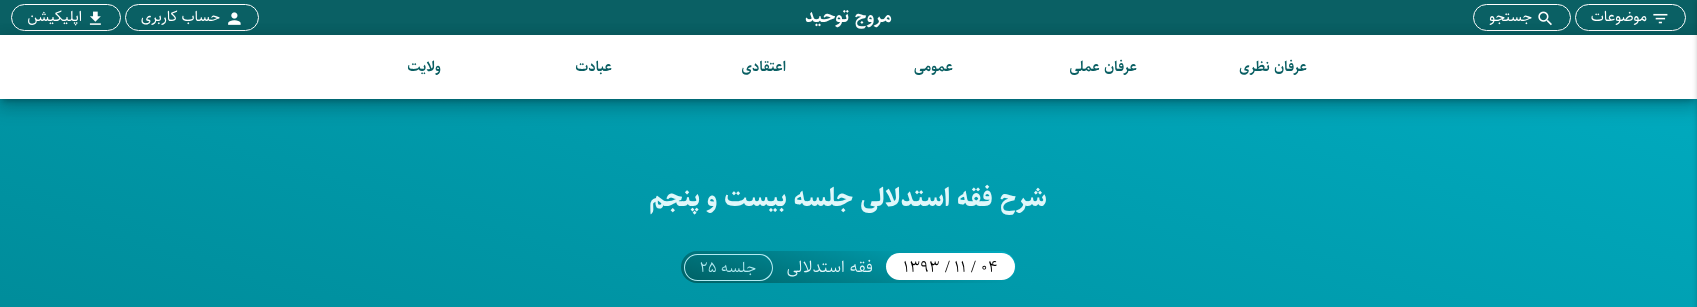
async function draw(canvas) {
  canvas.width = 1697;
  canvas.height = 307;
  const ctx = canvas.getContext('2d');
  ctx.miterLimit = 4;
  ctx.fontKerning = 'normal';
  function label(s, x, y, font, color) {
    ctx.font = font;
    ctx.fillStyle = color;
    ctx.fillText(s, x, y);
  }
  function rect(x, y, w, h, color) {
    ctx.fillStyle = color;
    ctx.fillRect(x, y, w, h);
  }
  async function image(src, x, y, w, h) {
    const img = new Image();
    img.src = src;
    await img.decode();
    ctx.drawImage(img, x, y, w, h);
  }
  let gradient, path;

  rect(0, 0, 1697, 307, '#fff');
  rect(0, 0, 1697, 35, '#0a6064');
  ctx.beginPath();
  ctx.roundRect(1575.5, 4.5, 110, 26, 13);
  ctx.strokeStyle = '#fff';
  ctx.stroke();
  await image('assets/img1.png', 1653, 13, 15, 11);
  ctx.direction = 'rtl';
  label('موضوعات', 1647, 21, '15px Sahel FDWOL', '#fff');
  ctx.beginPath();
  ctx.roundRect(1473.5, 4.5, 97, 26, 13);
  ctx.stroke();
  await image('assets/img2.png', 1538, 11, 14, 15);
  label('جستجو', 1532, 21, '15px Sahel FDWOL', '#fff');
  label('مروج توحید', 892, 22, '600 19.5px Sahel FDWOL', '#fff');
  ctx.beginPath();
  ctx.roundRect(125.5, 4.5, 133, 26, 13);
  ctx.stroke();
  await image('assets/img3.png', 228, 12, 13, 13);
  label('حساب کاربری', 220, 21, '15px Sahel FDWOL', '#fff');
  ctx.beginPath();
  ctx.roundRect(11.5, 4.5, 109, 26, 13);
  ctx.stroke();
  await image('assets/img4.png', 89, 11, 12, 14);
  label('اپلیکیشن', 82, 21, '15px Sahel FDWOL', '#fff');
  gradient = ctx.createLinearGradient(1117, -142, 580, 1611);
  gradient.addColorStop(0, '#00acc1');
  gradient.addColorStop(1, '#006064');
  ctx.fillStyle = gradient;
  ctx.fillRect(0, 99, 1697, 208);
  ctx.fillStyle = '#00000033';
  ctx.filter = 'blur(2.5px)';
  ctx.beginPath();
  ctx.rect(3, 43, 1691, 58);
  ctx.fill();
  ctx.filter = 'none';
  ctx.fillStyle = '#0000001f';
  ctx.filter = 'blur(7px)';
  ctx.beginPath();
  ctx.rect(-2, 36, 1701, 68);
  ctx.fill();
  ctx.filter = 'none';
  ctx.fillStyle = '#00000024';
  ctx.filter = 'blur(8.5px)';
  ctx.beginPath();
  ctx.rect(-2, 41, 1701, 68);
  ctx.fill();
  ctx.filter = 'none';
  rect(0, 35, 1697, 64, '#fff');
  ctx.fillStyle = '#00000033';
  ctx.filter = 'blur(2.5px)';
  ctx.beginPath();
  ctx.rect(1697, 1, 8, 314);
  ctx.fill();
  ctx.filter = 'none';
  label('عرفان نظری', 1307, 71, '600 15px Sahel FDWOL', '#0a5f63');
  label('عرفان عملی', 1137, 71, '600 15px Sahel FDWOL', '#0a5f63');
  label('عمومی', 953, 71, '600 15px Sahel FDWOL', '#0a5f63');
  label('اعتقادی', 786, 71, '600 15px Sahel FDWOL', '#0a5f63');
  label('عبادت', 612, 71, '600 15px Sahel FDWOL', '#0a5f63');
  label('ولایت', 441, 71, '600 15px Sahel FDWOL', '#0a5f63');
  label('شرح فقه استدلالی جلسه بیست و پنجم', 1047, 206, 'bold 26.25px Sahel FDWOL', '#e0f7fa');
  gradient = ctx.createLinearGradient(867, 206, 830, 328);
  gradient.addColorStop(0, '#00acc1');
  gradient.addColorStop(1, '#006064');
  ctx.fillStyle = gradient;
  ctx.beginPath();
  ctx.roundRect(681, 251, 335, 32, 16);
  ctx.fill();
  ctx.fillStyle = '#fff';
  ctx.beginPath();
  ctx.roundRect(981, 253, 34, 27, [0, 13.5, 13.5, 0]);
  ctx.fill();
  ctx.direction = 'ltr';
  label('۰۴', 981, 272, '300 17.25px Sahel FDWOL', '#000');
  rect(940, 253, 41, 27, '#fff');
  label('/', 971, 272, '17.25px Liberation Serif', '#000');
  label('۱۱', 954, 272, '300 17.25px Sahel FDWOL', '#000');
  label('/', 945, 272, '17.25px Liberation Serif', '#000');
  ctx.fillStyle = '#fff';
  ctx.beginPath();
  ctx.roundRect(886, 253, 54, 27, [13.5, 0, 0, 13.5]);
  ctx.fill();
  label('۱۳۹۳', 903, 272, '300 17.25px Sahel FDWOL', '#000');
  ctx.direction = 'rtl';
  label('فقه استدلالی', 873, 272, '300 17.25px Sahel FDWOL', '#e0f7fa');
  ctx.fillStyle = '#b2ebf2';
  path = new Path2D('M717 254H760C767 254 773 260 773 268C773 275 767 281 760 281H717ZM717 255H760C766 255 772 261 772 268C772 274 766 280 760 280H717Z');
  ctx.fill(path, 'evenodd');
  label('جلسه', 756, 272, '300 15.5px Sahel FDWOL', '#b2ebf2');
  path = new Path2D('M697.5 254H717V281H697.5C690 281 684 275 684 267.5C684 260 690 254 697.5 254ZM697.5 255H717V280H697.5C690.5 280 685 274.5 685 267.5C685 260.5 690.5 255 697.5 255Z');
  ctx.fill(path, 'evenodd');
  ctx.direction = 'ltr';
  label('۲۵', 700, 272, '300 15.5px Sahel FDWOL', '#b2ebf2');
}

draw(document.querySelector('canvas'));
